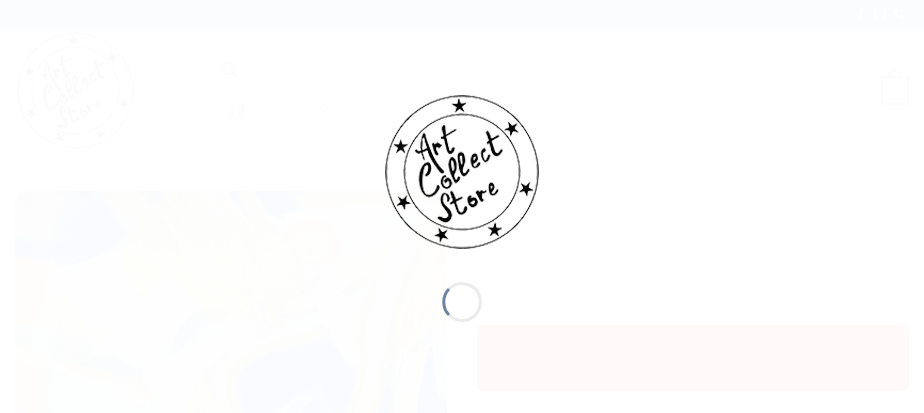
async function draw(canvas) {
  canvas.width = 924;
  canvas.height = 413;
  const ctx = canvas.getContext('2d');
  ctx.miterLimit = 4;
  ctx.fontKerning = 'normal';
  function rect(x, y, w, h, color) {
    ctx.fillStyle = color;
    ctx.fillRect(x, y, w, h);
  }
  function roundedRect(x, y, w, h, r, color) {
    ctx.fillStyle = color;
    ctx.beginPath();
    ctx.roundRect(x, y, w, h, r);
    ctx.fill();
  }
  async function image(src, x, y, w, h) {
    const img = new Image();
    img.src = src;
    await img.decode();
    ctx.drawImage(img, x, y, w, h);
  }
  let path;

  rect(0, 0, 924, 413, '#fff');
  rect(0, 0, 924, 30, '#fbfcfd');
  await image('assets/img1.png', 858, 7, 6, 13);
  await image('assets/img2.png', 874, 9, 12, 10);
  await image('assets/img3.png', 893, 8, 12, 12);
  await image('assets/img4.png', 17, 32, 117, 117);
  await image('assets/img5.png', 221, 61, 16, 16);
  await image('assets/img6.png', 228, 105, 16, 11);
  await image('assets/img7.png', 319, 107, 10, 6);
  ctx.strokeStyle = '#fbfcfd';
  ctx.lineWidth = 2;
  ctx.strokeRect(882, 77, 26, 27);
  path = new Path2D('M895 70C899.5 70 902 74 902 78H888C888 74 890.5 70 895 70ZM895 72C898.5 72 900 75 900 78H890C890 75 891.5 72 895 72Z');
  ctx.fill(path, 'evenodd');
  await image('assets/img9.png', 15, 191, 432, 222);
  await image('assets/img10.png', 411, 207, 19, 16);
  await image('assets/img8.png', 385, 95, 154, 154);
  path = new Path2D('M449 289C453.5 284.5 459.5 282.5 465.5 284C487.5 288 484 320.5 462 320.5C457 320.5 452.5 318.5 449 315');
  ctx.strokeStyle = '#ebebeb';
  ctx.lineWidth = 3;
  ctx.stroke(path);
  path = new Path2D('M449 315C442 308 442 296 449 289');
  ctx.strokeStyle = '#446084c7';
  ctx.stroke(path);
  roundedRect(477, 325, 432, 66, 5, '#fffafa');
}

draw(document.querySelector('canvas'));
